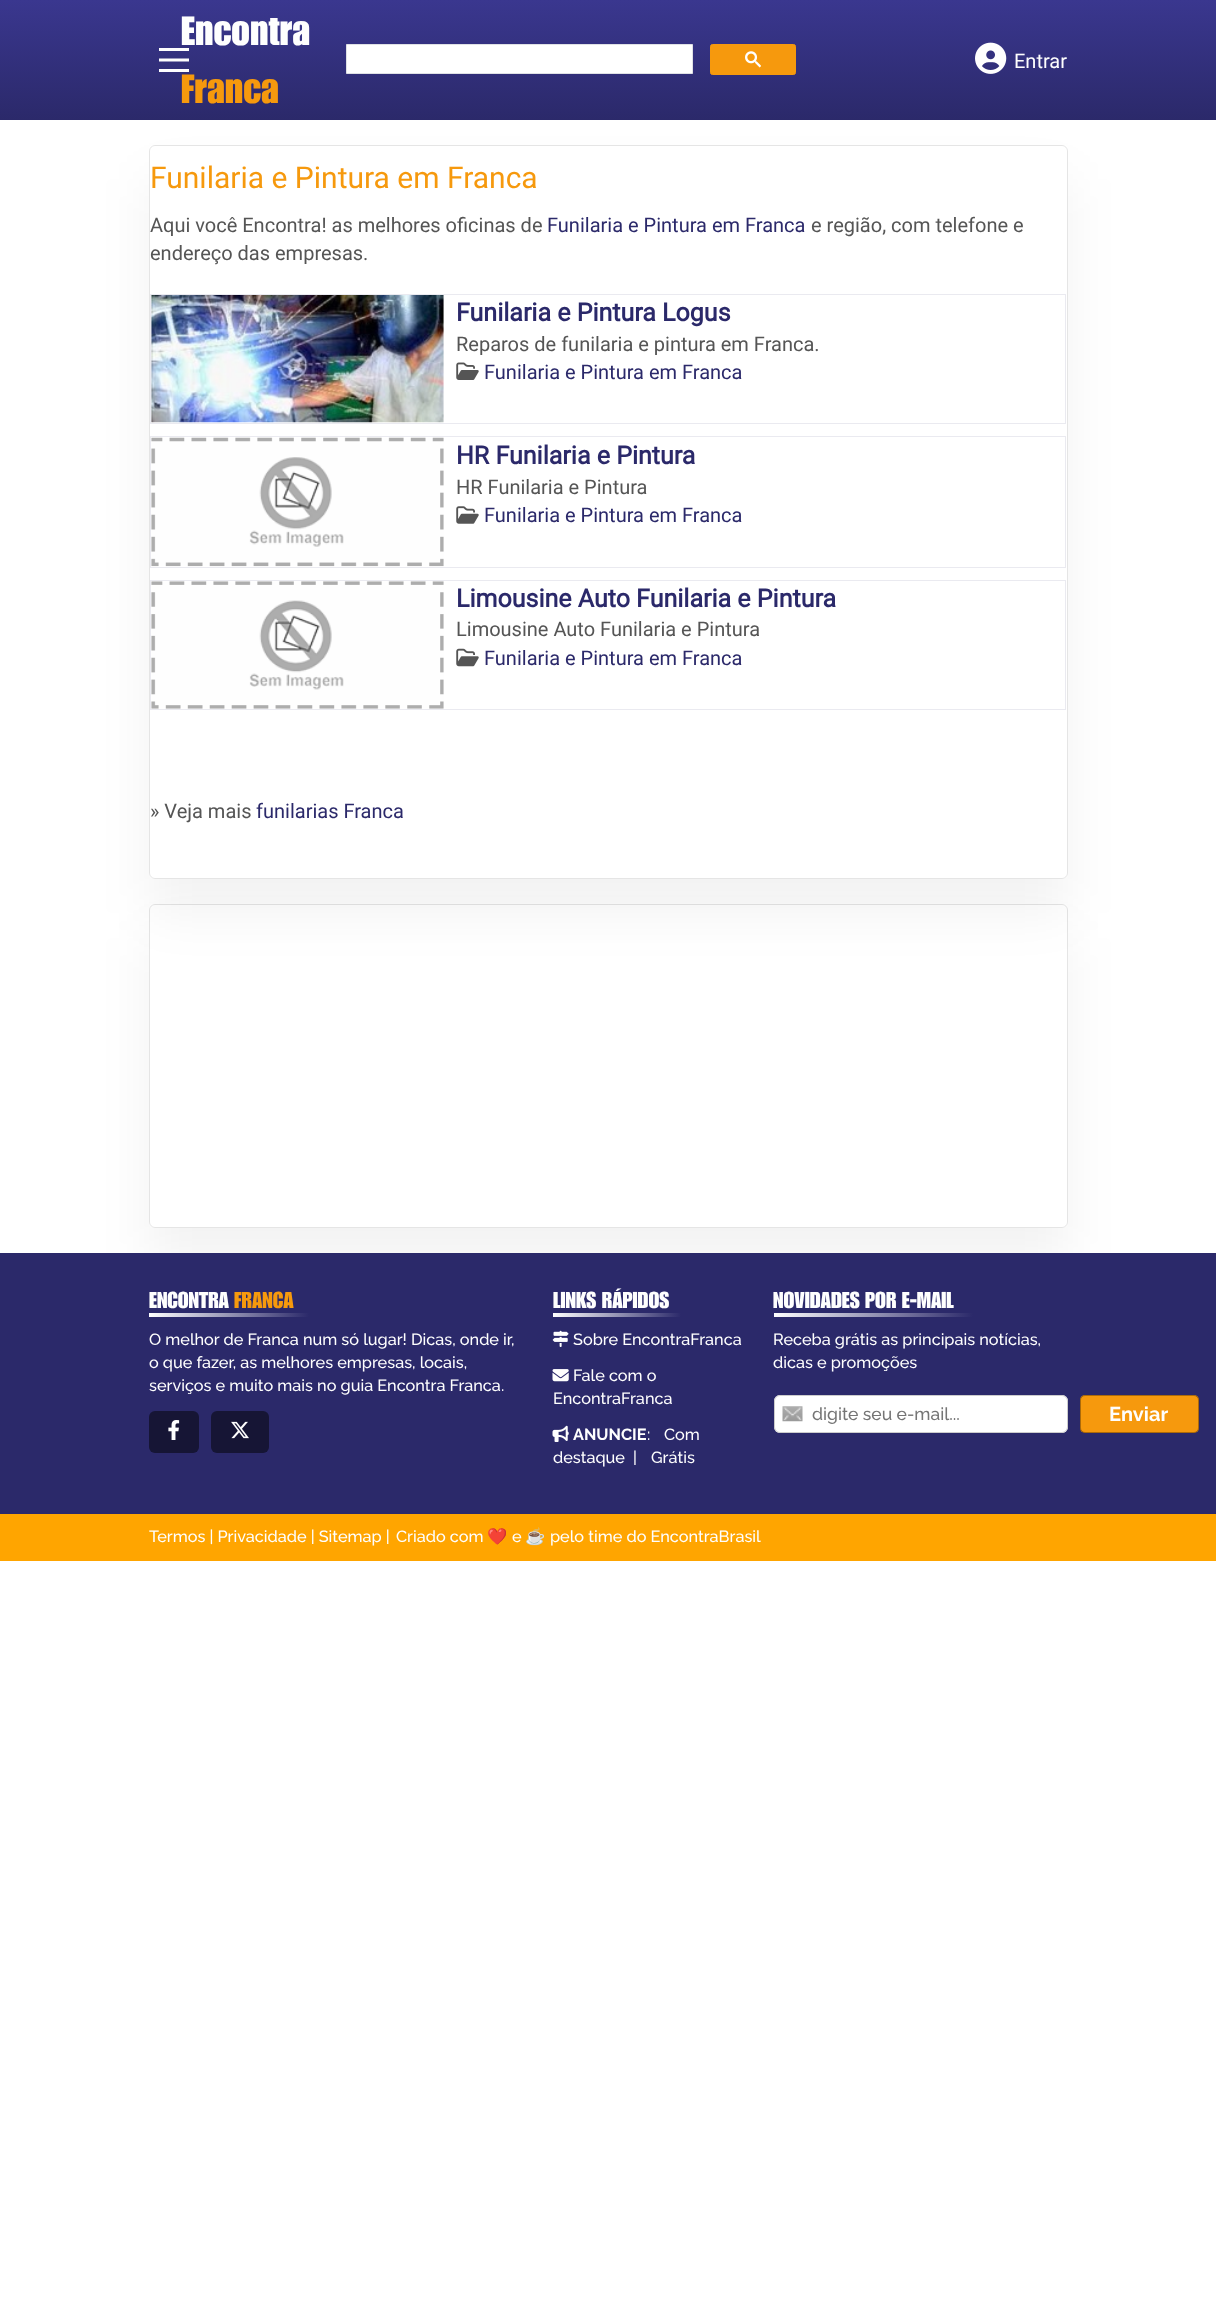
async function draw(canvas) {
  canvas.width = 1216;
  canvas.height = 2299;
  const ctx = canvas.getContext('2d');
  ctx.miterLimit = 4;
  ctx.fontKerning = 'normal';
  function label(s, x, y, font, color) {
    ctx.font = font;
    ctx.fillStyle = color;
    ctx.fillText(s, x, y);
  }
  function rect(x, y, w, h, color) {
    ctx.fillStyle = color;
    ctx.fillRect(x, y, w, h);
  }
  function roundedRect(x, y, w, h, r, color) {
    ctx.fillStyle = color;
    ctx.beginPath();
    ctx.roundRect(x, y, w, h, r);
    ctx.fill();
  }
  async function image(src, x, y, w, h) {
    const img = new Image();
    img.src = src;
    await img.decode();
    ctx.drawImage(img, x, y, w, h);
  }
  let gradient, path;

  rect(0, 0, 1216, 2299, '#fff');
  ctx.save();
  path = new Path2D('M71 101H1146V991H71ZM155 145H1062C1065.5 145 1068 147.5 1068 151V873C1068 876.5 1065.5 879 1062 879H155C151.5 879 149 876.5 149 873V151C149 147.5 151.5 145 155 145Z');
  ctx.clip(path, 'evenodd');
  ctx.fillStyle = '#0000000d';
  ctx.filter = 'blur(25.5px)';
  ctx.beginPath();
  ctx.roundRect(149, 179, 919, 734, 6);
  ctx.fill();
  ctx.filter = 'none';
  ctx.restore();
  gradient = ctx.createLinearGradient(608, 0, 608, 120);
  gradient.addColorStop(0, '#3a378f');
  gradient.addColorStop(1, '#2b296a');
  ctx.fillStyle = gradient;
  ctx.fillRect(0, 0, 1216, 120);
  rect(159, 48, 30, 3, '#fefefe');
  path = new Path2D('M159 60H189');
  ctx.strokeStyle = '#fefefe';
  ctx.lineWidth = 3;
  ctx.stroke(path);
  rect(159, 69, 30, 3, '#fefefe');
  label('Encontra', 181, 45, '500 40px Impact', '#fefefe');
  label('Franca', 181, 103, '500 40px Impact', '#f6990d');
  ctx.fillStyle = '#fff';
  ctx.beginPath();
  ctx.rect(346.5, 44.5, 346, 29);
  ctx.fill();
  ctx.strokeStyle = '#dfe1e5';
  ctx.lineWidth = 1;
  ctx.stroke();
  ctx.fillStyle = '#f6990d';
  ctx.beginPath();
  ctx.roundRect(710.5, 44.5, 85, 30, 2);
  ctx.fill();
  ctx.strokeStyle = '#f6990d';
  ctx.stroke();
  await image('assets/img1.png', 745, 51, 16, 17);
  await image('assets/img2.png', 975, 42, 32, 32);
  label('Entrar', 1014, 68, '20px Roboto', '#fefefe');
  ctx.beginPath();
  ctx.roundRect(149.5, 145.5, 918, 733, 5.5);
  ctx.strokeStyle = '#0000001a';
  ctx.stroke();
  label('Funilaria e Pintura em Franca', 150, 188, '30px Roboto', '#f6990d');
  label('Aqui você Encontra! as melhores oficinas de', 150, 232, '20px Roboto', '#555');
  label('Funilaria e Pintura em Franca', 547, 232, '20px Roboto', '#2b296a');
  label('e região, com telefone e', 811, 232, '20px Roboto', '#555');
  label('endereço das empresas.', 150, 260, '20px Roboto', '#555');
  ctx.strokeStyle = '#eaeaf0';
  ctx.strokeRect(150.5, 294.5, 915, 129);
  await image('assets/img3.png', 151, 295, 293, 128);
  label('Funilaria e Pintura Logus', 456, 321, 'bold 25px Roboto', '#2b296a');
  label('Reparos de funilaria e pintura em Franca.', 456, 351, '20px Roboto', '#555');
  await image('assets/img4.png', 456, 362, 23, 18);
  label('Funilaria e Pintura em Franca', 484, 379, '20px Roboto', '#2b296a');
  ctx.strokeRect(150.5, 436.5, 915, 131);
  await image('assets/img5.png', 151, 437, 293, 130);
  label('HR Funilaria e Pintura', 456, 464, 'bold 25px Roboto', '#2b296a');
  label('HR Funilaria e Pintura', 456, 494, '20px Roboto', '#555');
  await image('assets/img6.png', 456, 506, 23, 18);
  label('Funilaria e Pintura em Franca', 484, 522, '20px Roboto', '#2b296a');
  ctx.strokeRect(150.5, 580.5, 915, 129);
  await image('assets/img7.png', 151, 581, 293, 128);
  label('Limousine Auto Funilaria e Pintura', 456, 607, 'bold 25px Roboto', '#2b296a');
  label('Limousine Auto Funilaria e Pintura', 456, 636, '20px Roboto', '#555');
  await image('assets/img8.png', 456, 648, 23, 19);
  label('Funilaria e Pintura em Franca', 484, 665, '20px Roboto', '#2b296a');
  label('» Veja mais', 150, 818, '20px Roboto', '#555');
  label('funilarias Franca', 256, 818, '20px Roboto', '#2b296a');
  ctx.save();
  path = new Path2D('M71 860H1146V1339H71ZM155 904H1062C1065.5 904 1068 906.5 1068 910V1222C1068 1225.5 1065.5 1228 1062 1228H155C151.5 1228 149 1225.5 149 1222V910C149 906.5 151.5 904 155 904Z');
  ctx.clip(path, 'evenodd');
  ctx.fillStyle = '#0000000d';
  ctx.filter = 'blur(25.5px)';
  ctx.beginPath();
  ctx.roundRect(149, 938, 919, 323, 6);
  ctx.fill();
  ctx.filter = 'none';
  ctx.restore();
  ctx.beginPath();
  ctx.roundRect(149.5, 904.5, 918, 323, 5.5);
  ctx.strokeStyle = '#0000001a';
  ctx.stroke();
  rect(0, 1253, 1216, 261, '#2b296a');
  label('ENCONTRA', 149, 1308, '500 22.5px Impact', '#fefefe');
  label('FRANCA', 234, 1308, '500 22.5px Impact', '#f6990d');
  gradient = ctx.createLinearGradient(149, 1314, 309, 1314);
  gradient.addColorStop(0, '#fff');
  gradient.addColorStop(1, '#2b296a');
  ctx.fillStyle = gradient;
  ctx.fillRect(149, 1313, 160, 4);
  label('O melhor de Franca num só lugar! Dicas, onde ir,', 149, 1345, '500 16.25px Raleway', '#fefefe');
  label('o que fazer, as melhores empresas, locais,', 149, 1368, '500 16.25px Raleway', '#fefefe');
  label('serviços e muito mais no guia Encontra Franca.', 149, 1391, '500 16.25px Raleway', '#fefefe');
  roundedRect(149, 1411, 50, 42, 6, '#161535');
  await image('assets/img9.png', 168, 1420, 12, 20);
  roundedRect(211, 1411, 58, 42, 6, '#161535');
  await image('assets/img10.png', 231, 1421, 18, 18);
  label('LINKS RÁPIDOS', 553, 1308, '500 22.5px Impact', '#fefefe');
  gradient = ctx.createLinearGradient(553, 1314, 681, 1314);
  gradient.addColorStop(0, '#fff');
  gradient.addColorStop(1, '#2b296a');
  ctx.fillStyle = gradient;
  ctx.fillRect(553, 1313, 128, 4);
  await image('assets/img11.png', 552, 1330, 17, 17);
  label('Sobre EncontraFranca', 573, 1345, '500 16.25px Raleway', '#fefefe');
  await image('assets/img12.png', 552, 1369, 17, 13);
  label('Fale com o', 573, 1381, '500 16.25px Raleway', '#fefefe');
  label('EncontraFranca', 553, 1404, '500 16.25px Raleway', '#fefefe');
  await image('assets/img13.png', 552, 1425, 17, 17);
  label('ANUNCIE', 573, 1440, 'bold 16.25px Raleway', '#fefefe');
  label(':', 647, 1440, '500 16.25px Raleway', '#fefefe');
  label('Com', 664, 1440, '500 16.25px Raleway', '#fefefe');
  label('destaque', 553, 1463, '500 16.25px Raleway', '#fefefe');
  label('|', 633, 1463, '500 16.25px Raleway', '#fefefe');
  label('Grátis', 651, 1463, '500 16.25px Raleway', '#fefefe');
  label('NOVIDADES POR E-MAIL', 773, 1308, '500 22.5px Impact', '#fefefe');
  gradient = ctx.createLinearGradient(774, 1314, 973, 1314);
  gradient.addColorStop(0, '#fff');
  gradient.addColorStop(1, '#2b296a');
  ctx.fillStyle = gradient;
  ctx.fillRect(774, 1313, 199, 4);
  label('Receba grátis as principais notícias,', 773, 1345, '500 16.25px Raleway', '#fefefe');
  label('dicas e promoções', 773, 1368, '500 16.25px Raleway', '#fefefe');
  roundedRect(774, 1395, 294, 38, 6, '#fff');
  await image('assets/img14.png', 782, 1406, 21, 16);
  ctx.beginPath();
  ctx.roundRect(774.5, 1395.5, 293, 37, 5.5);
  ctx.strokeStyle = '#ccc';
  ctx.stroke();
  label('digite seu e-mail...', 812, 1420, '500 17.5px Raleway', '#757575');
  roundedRect(1080, 1395, 119, 38, 5, '#f6990d');
  ctx.beginPath();
  ctx.roundRect(1080.5, 1395.5, 118, 37, 4.5);
  ctx.strokeStyle = '#0000004d';
  ctx.stroke();
  label('Enviar', 1109, 1421, 'bold 20px Raleway', '#fefefe');
  rect(0, 1514, 1216, 47, '#ffa500');
  label('Termos | Privacidade | Sitemap |', 149, 1542, '500 16.25px Raleway', '#fefefe');
  label('Criado com', 396, 1542, '500 16.25px Raleway', '#fefefe');
  label('❤️', 487, 1542, '16.25px Noto Color Emoji', '#fefefe');
  label('e', 512, 1542, '500 16.25px Raleway', '#fefefe');
  label('☕', 525, 1542, '16.25px Noto Color Emoji', '#fefefe');
  label('pelo time do EncontraBrasil', 550, 1542, '500 16.25px Raleway', '#fefefe');
}

draw(document.querySelector('canvas'));
